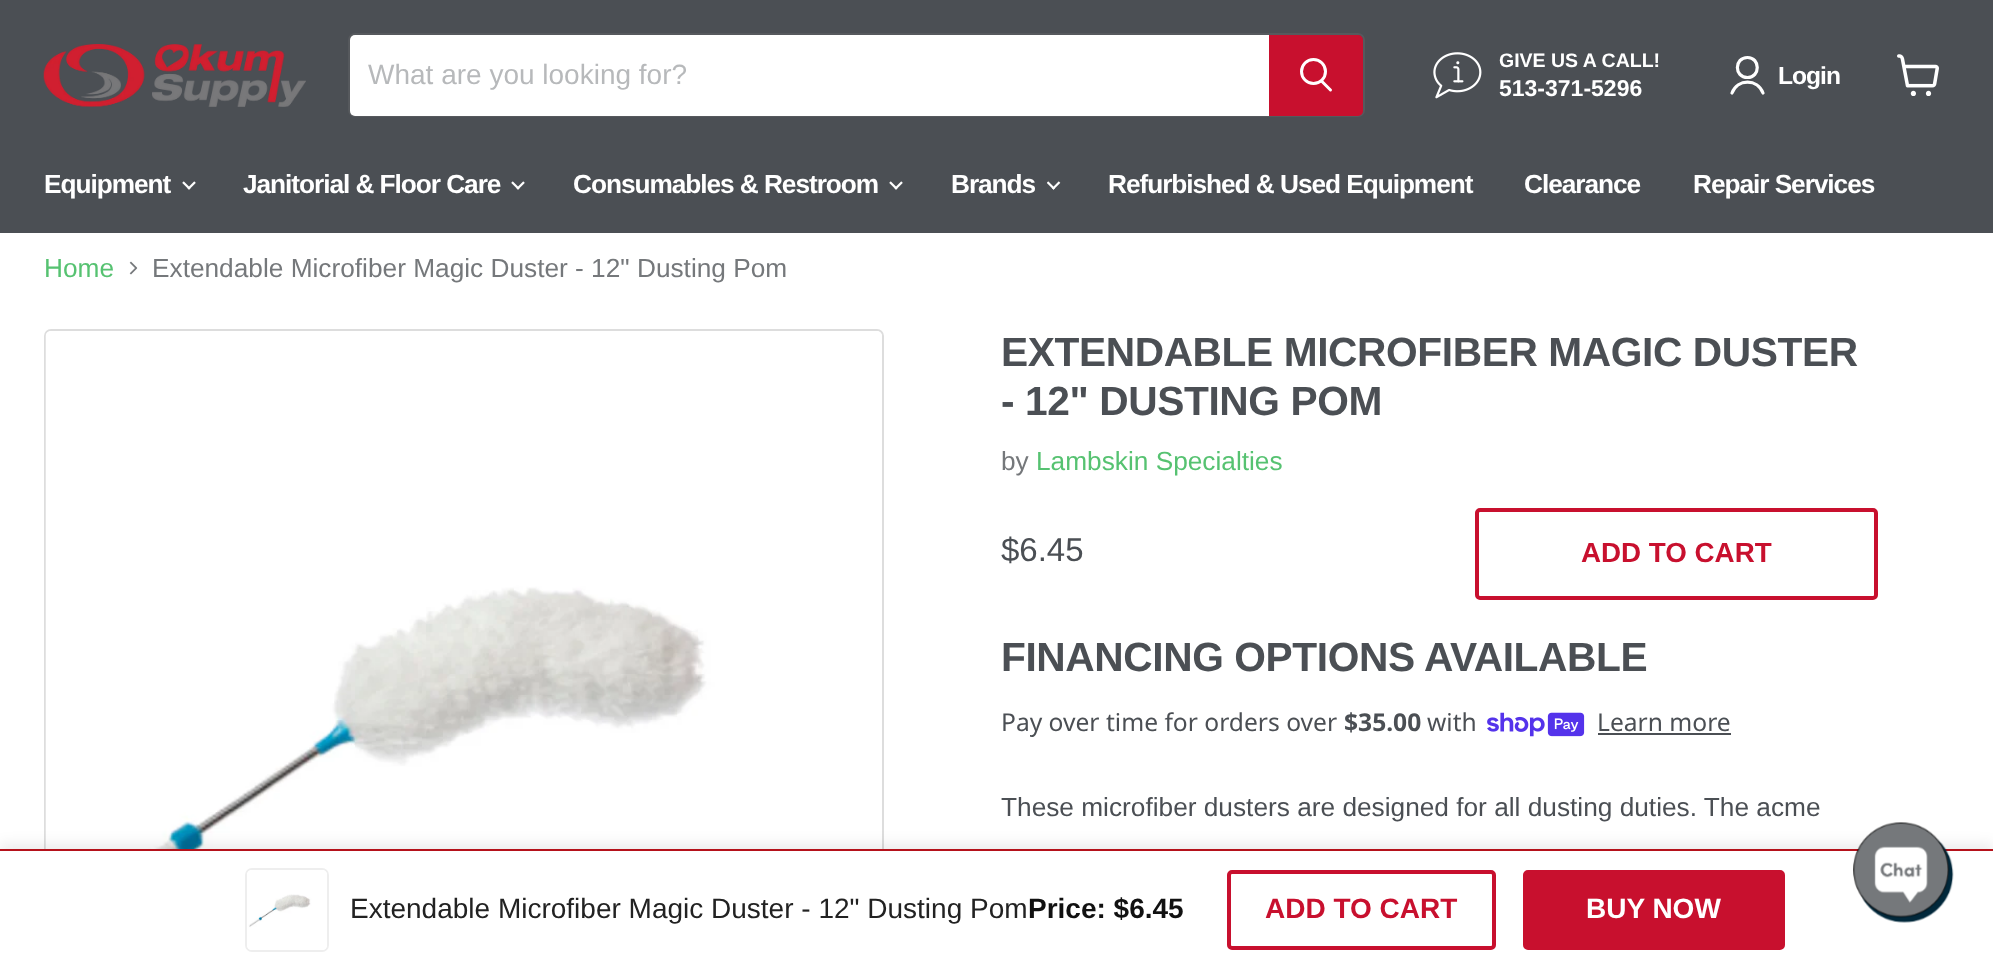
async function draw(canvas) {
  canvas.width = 1993;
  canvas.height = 968;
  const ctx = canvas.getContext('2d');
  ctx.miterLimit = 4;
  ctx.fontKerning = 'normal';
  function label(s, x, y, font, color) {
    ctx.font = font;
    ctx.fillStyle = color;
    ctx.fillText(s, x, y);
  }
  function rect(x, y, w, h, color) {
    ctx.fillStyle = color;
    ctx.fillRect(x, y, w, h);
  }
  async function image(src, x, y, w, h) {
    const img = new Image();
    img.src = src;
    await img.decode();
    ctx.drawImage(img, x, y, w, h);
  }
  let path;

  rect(0, 0, 1993, 968, '#fff');
  rect(0, 0, 1993, 233, '#4b4f54');
  await image('assets/img1.png', 43, 44, 263, 63);
  ctx.beginPath();
  ctx.roundRect(349, 34, 1015, 82, 6);
  ctx.strokeStyle = '#56595d';
  ctx.lineWidth = 2;
  ctx.stroke();
  ctx.fillStyle = '#fff';
  ctx.beginPath();
  ctx.roundRect(350, 35, 919, 81, [5, 0, 0, 5]);
  ctx.fill();
  label('What are you looking for?', 368, 84, '28px Liberation Sans', '#b7b9bb');
  ctx.fillStyle = '#c8102e';
  ctx.beginPath();
  ctx.roundRect(1270, 36, 92, 79, [0, 4, 4, 0]);
  ctx.fill();
  ctx.strokeStyle = '#c8102e';
  ctx.stroke();
  path = new Path2D('M1330.5 90L1322 81.5');
  ctx.strokeStyle = '#fff';
  ctx.lineWidth = 3;
  ctx.lineCap = 'round';
  ctx.stroke(path);
  ctx.beginPath();
  ctx.arc(1313.5, 71.5, 12, 0, 2 * Math.PI);
  ctx.stroke();
  await image('assets/img2.png', 1433, 52, 49, 47);
  label('GIVE US A CALL!', 1499, 67, 'bold 19.5px Liberation Sans', '#fff');
  label('513-371-5296', 1499, 96, 'bold 23px Liberation Sans', '#fff');
  path = new Path2D('M1747.5 77.5C1760.5 77.5 1760.5 57.5 1747.5 57.5C1734 57.5 1734 77.5 1747.5 77.5ZM1763 93C1757.5 78.5 1737.5 78.5 1732 93');
  ctx.lineWidth = 3.2;
  ctx.lineJoin = 'round';
  ctx.stroke(path);
  ctx.letterSpacing = '-1px';
  label('Login', 1778, 84, 'bold 24.6px Liberation Sans', '#fff');
  await image('assets/img3.png', 1897, 54, 42, 42);
  ctx.letterSpacing = '-1.05px';
  label('Equipment', 44, 193, 'bold 26.25px Liberation Sans', '#fff');
  await image('assets/img4.png', 182, 181, 14, 9);
  label('Janitorial & Floor Care', 243, 193, 'bold 26.25px Liberation Sans', '#fff');
  await image('assets/img4.png', 511, 181, 14, 9);
  label('Consumables & Restroom', 573, 193, 'bold 26.25px Liberation Sans', '#fff');
  await image('assets/img4.png', 889, 181, 14, 9);
  label('Brands', 951, 193, 'bold 26.25px Liberation Sans', '#fff');
  await image('assets/img5.png', 1047, 181, 14, 9);
  label('Refurbished & Used Equipment', 1108, 193, 'bold 26.25px Liberation Sans', '#fff');
  label('Clearance', 1524, 193, 'bold 26.25px Liberation Sans', '#fff');
  label('Repair Services', 1693, 193, 'bold 26.25px Liberation Sans', '#fff');
  ctx.letterSpacing = '0px';
  label('Home', 44, 277, '26.25px Liberation Sans', '#56c271');
  await image('assets/img6.png', 129, 261, 9, 14);
  label('Extendable Microfiber Magic Duster - 12" Dusting Pom', 152, 277, '26.25px Liberation Sans', '#75787b');
  ctx.beginPath();
  ctx.roundRect(45, 330, 838, 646, 6);
  ctx.strokeStyle = '#ddd';
  ctx.lineWidth = 2;
  ctx.lineJoin = 'miter';
  ctx.stroke();
  await image('assets/img7.png', 45, 331, 837, 518);
  ctx.letterSpacing = '-0.4px';
  label('EXTENDABLE MICROFIBER MAGIC DUSTER', 1001, 366, 'bold 40.7px Liberation Sans', '#4b4f54');
  label('- 12" DUSTING POM', 1001, 415, 'bold 40.7px Liberation Sans', '#4b4f54');
  ctx.letterSpacing = '0px';
  label('by', 1001, 470, '26.25px Liberation Sans', '#75787b');
  label('Lambskin Specialties', 1036, 470, '26.25px Liberation Sans', '#56c271');
  label('$6.45', 1001, 561, '33px Liberation Sans', '#4b4f54');
  ctx.beginPath();
  ctx.roundRect(1477, 510, 399, 88, 3);
  ctx.strokeStyle = '#c8102e';
  ctx.lineWidth = 4;
  ctx.stroke();
  label('ADD TO CART', 1581, 562, 'bold 27.75px Liberation Sans', '#c8102e');
  ctx.letterSpacing = '-0.4px';
  label('FINANCING OPTIONS AVAILABLE', 1001, 671, 'bold 40.7px Liberation Sans', '#4b4f54');
  ctx.letterSpacing = '0px';
  label('Pay over time for orders over', 1001, 731, '24.6px Noto Sans', '#4b4f54');
  label('$35.00', 1344, 731, 'bold 24.6px Noto Sans', '#4b4f54');
  label('with', 1427, 731, '24.6px Noto Sans', '#4b4f54');
  await image('assets/img8.png', 1487, 712, 98, 25);
  label('Learn more', 1597, 731, '24.6px Noto Sans', '#4b4f54');
  rect(1598, 733, 133, 2, '#4b4f54');
  label('These microfiber dusters are designed for all dusting duties. The acme', 1001, 816, '26.25px Liberation Sans', '#4b4f54');
  ctx.fillStyle = '#00000014';
  ctx.filter = 'blur(7px)';
  ctx.beginPath();
  ctx.rect(0, 844, 1993, 120);
  ctx.fill();
  ctx.filter = 'none';
  rect(0, 851, 1993, 117, '#fff');
  rect(0, 849, 1993, 2, '#b5121b');
  ctx.beginPath();
  ctx.roundRect(246, 869, 82, 82, 6);
  ctx.strokeStyle = '#eee';
  ctx.lineWidth = 2;
  ctx.stroke();
  await image('assets/img9.png', 247, 870, 80, 80);
  label('Extendable Microfiber Magic Duster - 12" Dusting Pom', 350, 918, '28px Liberation Sans', '#222');
  label('Price: $6.45', 1028, 918, 'bold 28px Liberation Sans', '#111');
  ctx.beginPath();
  ctx.roundRect(1229, 872, 265, 76, 3);
  ctx.strokeStyle = '#c8102e';
  ctx.lineWidth = 4;
  ctx.stroke();
  label('ADD TO CART', 1265, 918, 'bold 28px Liberation Sans', '#c8102e');
  ctx.beginPath();
  ctx.roundRect(1525, 872, 258, 76, 3);
  ctx.fill();
  ctx.stroke();
  label('BUY NOW', 1586, 918, 'bold 28px Liberation Sans', '#fff');
  await image('assets/img10.png', 1853, 822, 101, 101);
}

draw(document.querySelector('canvas'));
